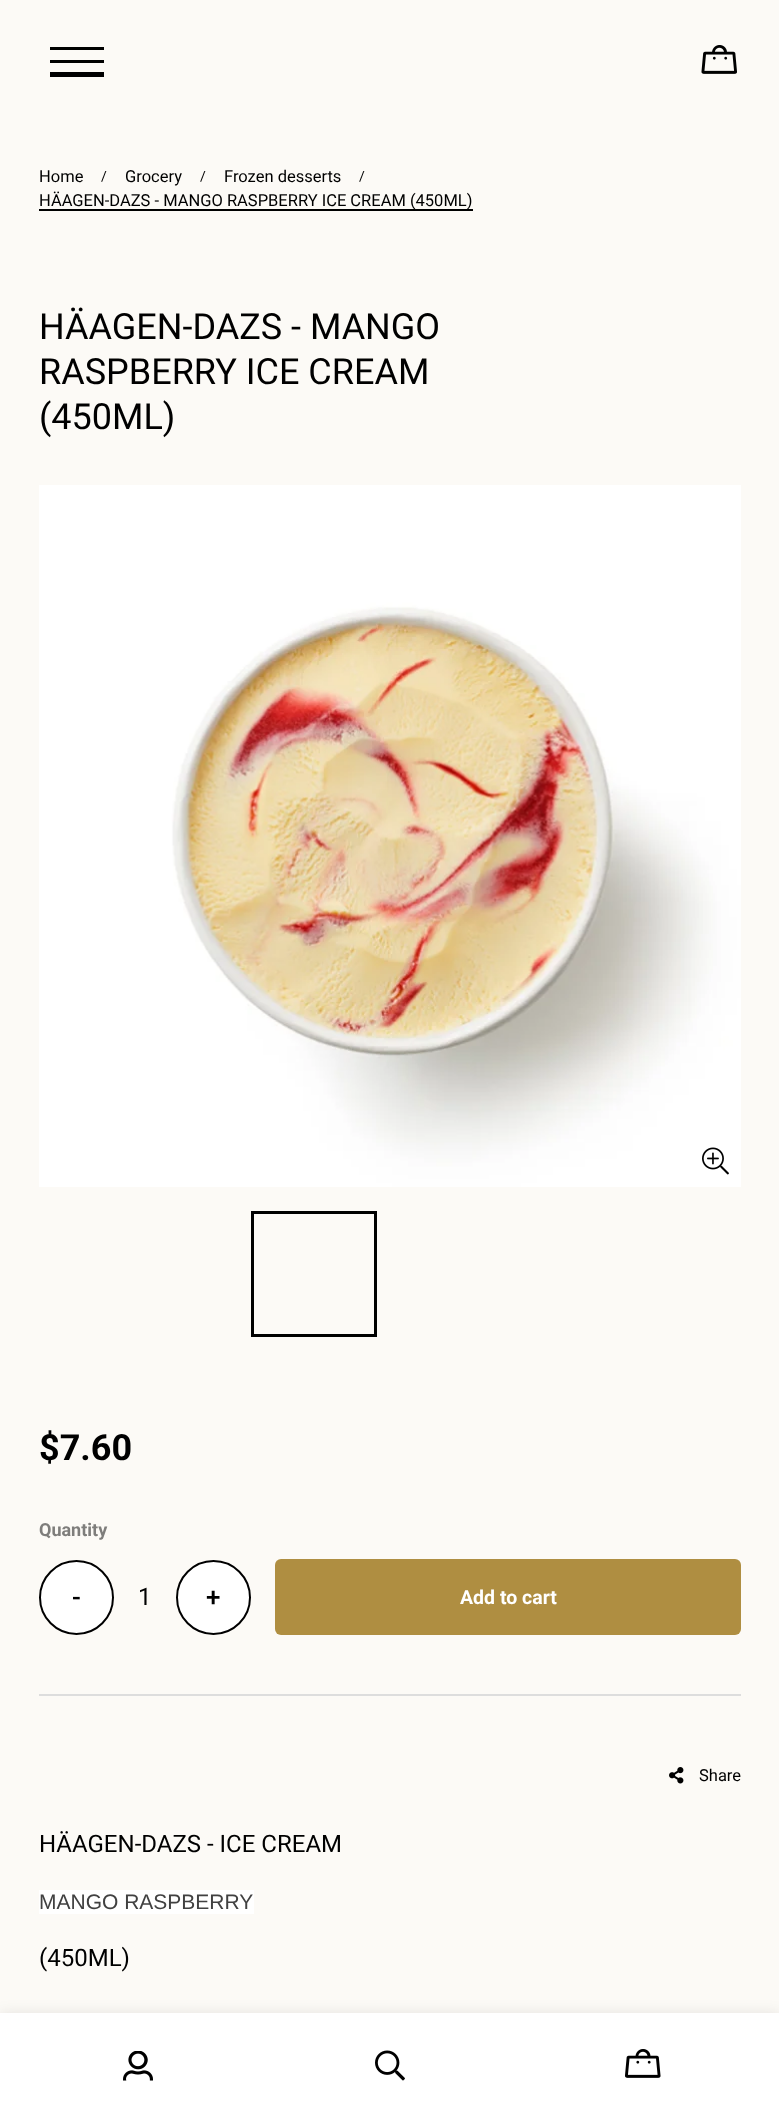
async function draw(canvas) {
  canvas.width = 779;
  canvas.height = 2118;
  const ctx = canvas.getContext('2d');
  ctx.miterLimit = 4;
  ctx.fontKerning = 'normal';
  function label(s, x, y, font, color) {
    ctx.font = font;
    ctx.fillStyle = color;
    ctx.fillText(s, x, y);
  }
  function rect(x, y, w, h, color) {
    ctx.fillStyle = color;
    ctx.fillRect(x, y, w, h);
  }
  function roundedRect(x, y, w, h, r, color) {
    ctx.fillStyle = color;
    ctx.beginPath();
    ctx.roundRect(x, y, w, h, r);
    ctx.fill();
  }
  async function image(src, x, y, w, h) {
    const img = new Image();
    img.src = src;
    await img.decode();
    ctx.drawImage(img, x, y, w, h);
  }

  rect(0, 0, 779, 2118, '#fcfaf6');
  rect(50, 47, 54, 3, '#000');
  rect(50, 60, 54, 3, '#000');
  rect(50, 72, 54, 5, '#000');
  await image('assets/img1.png', 701, 45, 36, 29);
  label('Home', 39, 182, '16.5px Roboto', '#000');
  label('/', 101, 181, '14px Roboto', '#000');
  label('Grocery', 125, 182, '16.5px Roboto', '#000');
  label('/', 200, 181, '14px Roboto', '#000');
  label('Frozen desserts', 224, 182, '16.5px Roboto', '#000');
  label('/', 359, 181, '14px Roboto', '#000');
  rect(39, 209, 434, 2, '#000');
  label('HÄAGEN-DAZS - MANGO RASPBERRY ICE CREAM (450ML)', 39, 206, '16.5px Roboto', '#000');
  label('HÄAGEN-DAZS - MANGO', 39, 339, '36px Roboto', '#000');
  label('RASPBERRY ICE CREAM', 39, 384, '36px Roboto', '#000');
  label('(450ML)', 39, 429, '36px Roboto', '#000');
  await image('assets/img2.png', 39, 485, 702, 702);
  await image('assets/img3.png', 702, 1147, 27, 28);
  ctx.strokeStyle = '#000';
  ctx.lineWidth = 3;
  ctx.strokeRect(252.5, 1212.5, 123, 123);
  label('$7.60', 39, 1460, 'bold 36px Roboto', '#000');
  rect(39, 1694, 702, 2, '#ddd');
  label('Quantity', 39, 1536, 'bold 18px Roboto', '#7e7d7b');
  ctx.fillStyle = '#fff';
  ctx.beginPath();
  ctx.arc(76.5, 1597.5, 36.5, 0, 2 * Math.PI);
  ctx.fill();
  ctx.lineWidth = 2;
  ctx.stroke();
  ctx.letterSpacing = '2px';
  label('-', 72, 1606, '500 26px Roboto', '#000');
  ctx.letterSpacing = '0px';
  label('1', 138, 1605, '24px Roboto', '#000');
  ctx.fillStyle = '#fff';
  ctx.beginPath();
  ctx.arc(213.5, 1597.5, 36.5, 0, 2 * Math.PI);
  ctx.fill();
  ctx.stroke();
  ctx.letterSpacing = '2px';
  label('+', 206, 1606, '500 26px Roboto', '#000');
  roundedRect(275, 1559, 466, 76, 6, '#af8e41');
  ctx.letterSpacing = '0px';
  label('Add to cart', 460, 1604, 'bold 19.5px Roboto', '#fff');
  await image('assets/img4.png', 669, 1767, 15, 17);
  label('Share', 699, 1781, '16.5px Roboto', '#000');
  label('HÄAGEN-DAZS - ICE CREAM', 39, 1852, '24px Roboto', '#000');
  rect(39, 1890, 215, 24, '#fff');
  label('MANGO RASPBERRY', 39, 1909, '21px Liberation Sans', '#414141');
  label('(450ML)', 39, 1966, '24px Roboto', '#000');
  ctx.fillStyle = '#0000001f';
  ctx.filter = 'blur(7.5px)';
  ctx.beginPath();
  ctx.rect(0, 2015, 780, 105);
  ctx.fill();
  ctx.filter = 'none';
  rect(0, 2013, 779, 105, '#fff');
  await image('assets/img5.png', 123, 2051, 30, 30);
  await image('assets/img6.png', 375, 2050, 30, 31);
  await image('assets/img7.png', 625, 2049, 36, 29);
}

draw(document.querySelector('canvas'));
